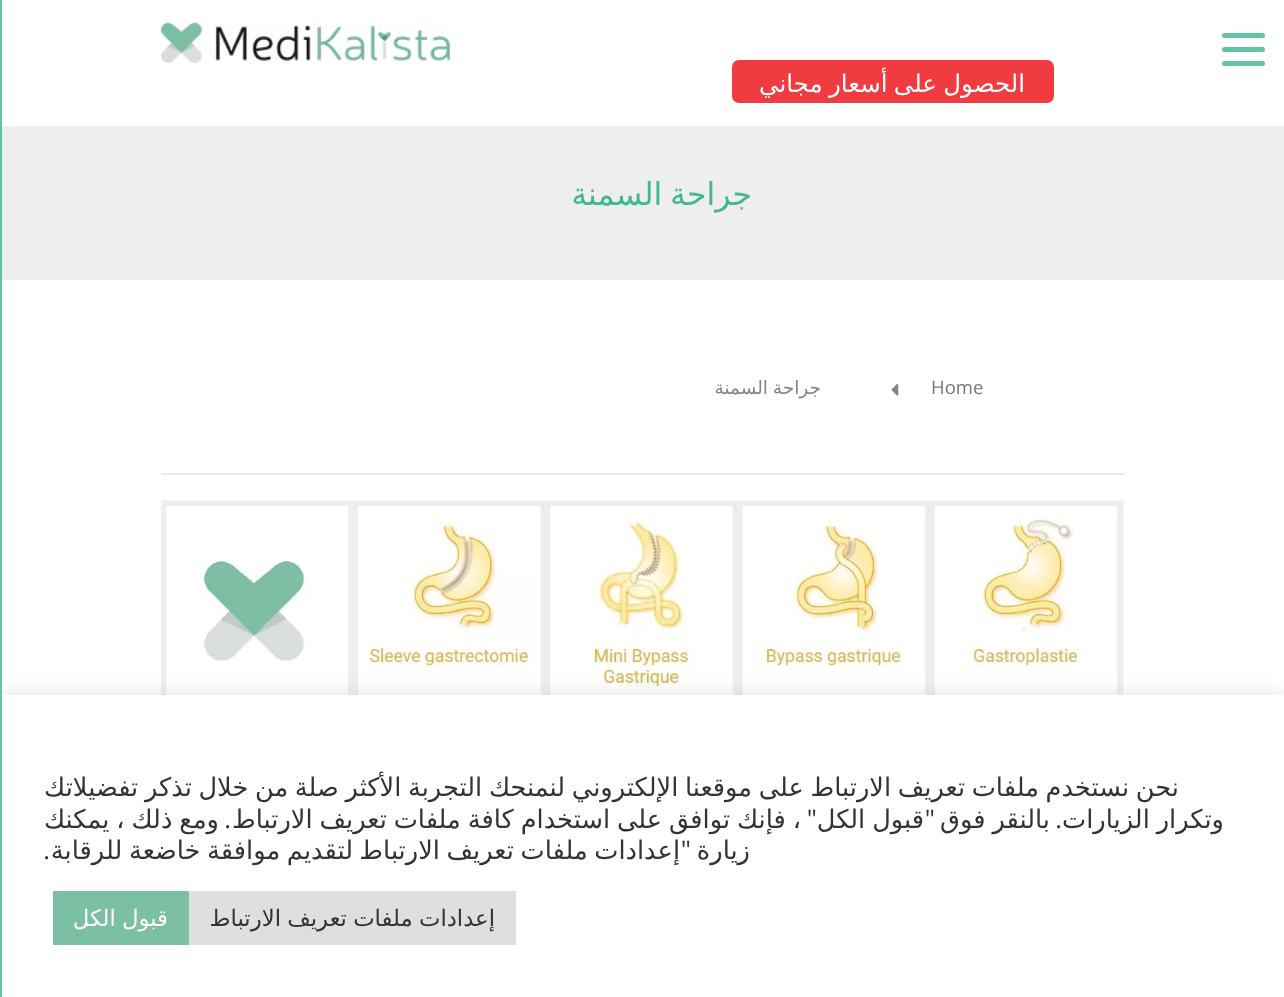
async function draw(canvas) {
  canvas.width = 1284;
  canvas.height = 997;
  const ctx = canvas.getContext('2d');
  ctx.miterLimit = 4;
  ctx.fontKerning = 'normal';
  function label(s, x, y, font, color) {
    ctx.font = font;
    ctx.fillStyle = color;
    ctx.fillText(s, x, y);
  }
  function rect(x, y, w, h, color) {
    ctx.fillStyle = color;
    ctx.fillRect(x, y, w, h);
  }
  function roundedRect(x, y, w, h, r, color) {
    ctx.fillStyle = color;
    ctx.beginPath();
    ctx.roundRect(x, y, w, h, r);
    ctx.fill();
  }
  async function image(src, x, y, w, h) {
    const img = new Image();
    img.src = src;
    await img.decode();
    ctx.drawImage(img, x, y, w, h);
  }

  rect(0, 0, 1284, 997, '#fff');
  roundedRect(1222, 47, 43, 5, 2.5, '#64c3a1');
  roundedRect(1222, 33, 43, 5, 2.5, '#64c3a1');
  roundedRect(1222, 61, 43, 5, 2.5, '#64c3a1');
  await image('assets/img3.png', 161, 500, 963, 195);
  ctx.fillStyle = '#acabab4d';
  ctx.filter = 'blur(9px)';
  ctx.beginPath();
  ctx.rect(0, 693, 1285, 303);
  ctx.fill();
  ctx.filter = 'none';
  rect(0, 0, 2, 997, '#64c3a1');
  await image('assets/img1.png', 161, 22, 289, 41);
  ctx.fillStyle = '#f03c40';
  ctx.beginPath();
  ctx.roundRect(733, 61, 320, 41, 6);
  ctx.fill();
  ctx.strokeStyle = '#f03c40';
  ctx.lineWidth = 2;
  ctx.stroke();
  ctx.wordSpacing = '-1.5px';
  ctx.direction = 'rtl';
  label('الحصول على أسعار مجاني', 1025, 92, '24.5px DejaVu Sans', '#fff');
  rect(2, 126, 1282, 154, '#eee');
  ctx.letterSpacing = '1.75px';
  ctx.wordSpacing = '-4px';
  label('جراحة السمنة', 752, 205, '31.5px DejaVu Sans', '#43b792');
  rect(161, 473, 963, 2, '#e9e9e9');
  ctx.letterSpacing = '0px';
  ctx.wordSpacing = '0px';
  ctx.direction = 'ltr';
  label('Home', 931, 394, '18.5px Open Sans', '#777');
  await image('assets/img2.png', 891, 383, 8, 13);
  ctx.wordSpacing = '-1px';
  ctx.direction = 'rtl';
  label('جراحة السمنة', 821, 394, '18.5px DejaVu Sans', '#858585');
  rect(2, 695, 1282, 302, '#fff');
  ctx.wordSpacing = '-1.5px';
  label('نحن نستخدم ملفات تعريف الارتباط على موقعنا الإلكتروني لنمنحك التجربة الأكثر صلة من خلال تذكر تفضيلاتك', 1179, 796, '25.65px DejaVu Sans', '#333');
  ctx.wordSpacing = '-1.25px';
  label('وتكرار الزيارات', 1224, 828, '25.65px DejaVu Sans', '#333');
  label('بالنقر فوق', 1050, 828, '25.65px DejaVu Sans', '#333');
  ctx.wordSpacing = '0px';
  label('"', 935, 828, '25.65px Open Sans', '#333');
  ctx.wordSpacing = '-1.25px';
  label('قبول الكل', 924, 828, '25.65px DejaVu Sans', '#333');
  label('، فإنك توافق على استخدام كافة ملفات تعريف الارتباط', 801, 828, '25.65px DejaVu Sans', '#333');
  ctx.wordSpacing = '0px';
  label('"', 817, 828, '25.65px Open Sans', '#333');
  ctx.wordSpacing = '-1.25px';
  label('ومع ذلك ، يمكنك', 219, 828, '25.65px DejaVu Sans', '#333');
  ctx.wordSpacing = '0px';
  label('.', 1062, 828, '25.65px Open Sans', '#333');
  label('.', 231, 828, '25.65px Open Sans', '#333');
  label('زيارة', 750, 859, '25.65px DejaVu Sans', '#333');
  ctx.wordSpacing = '-1.5px';
  label('إعدادات ملفات تعريف الارتباط', 680, 859, '25.65px DejaVu Sans', '#333');
  ctx.wordSpacing = '0px';
  label('"', 691, 859, '25.65px Open Sans', '#333');
  ctx.wordSpacing = '-1.5px';
  label('لتقديم موافقة خاضعة للرقابة', 353, 859, '25.65px DejaVu Sans', '#333');
  ctx.wordSpacing = '0px';
  label('.', 50, 859, '25.65px Open Sans', '#333');
  rect(189, 891, 327, 54, '#dedfe0');
  ctx.wordSpacing = '-1px';
  label('إعدادات ملفات تعريف الارتباط', 495, 926, '22.75px DejaVu Sans', '#333');
  rect(53, 891, 136, 54, '#7bbfa4');
  label('قبول الكل', 168, 926, '22.75px DejaVu Sans', '#fff');
}

draw(document.querySelector('canvas'));
